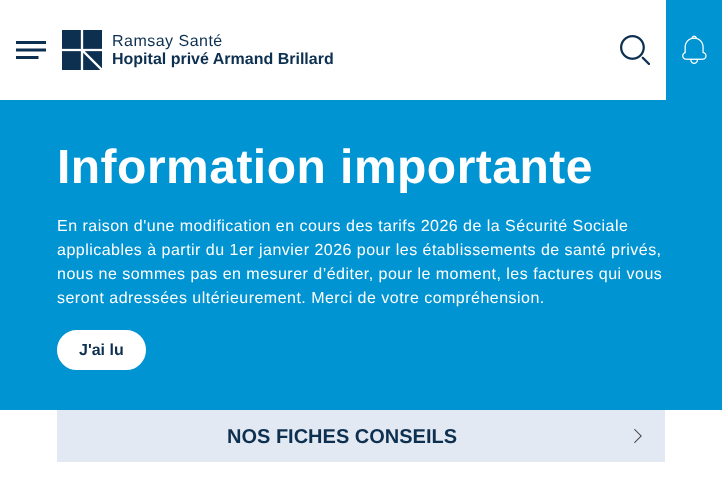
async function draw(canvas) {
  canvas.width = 722;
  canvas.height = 502;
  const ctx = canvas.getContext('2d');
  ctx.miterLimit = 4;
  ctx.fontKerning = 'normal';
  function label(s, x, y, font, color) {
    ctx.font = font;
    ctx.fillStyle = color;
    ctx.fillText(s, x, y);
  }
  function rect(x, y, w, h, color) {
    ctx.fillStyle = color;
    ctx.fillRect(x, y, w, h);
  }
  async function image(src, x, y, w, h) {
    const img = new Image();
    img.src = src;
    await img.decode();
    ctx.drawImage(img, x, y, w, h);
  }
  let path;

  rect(0, 0, 722, 502, '#fff');
  await image('assets/img1.png', 16, 41, 30, 18);
  await image('assets/img2.png', 62, 30, 40, 40);
  ctx.letterSpacing = '0.48px';
  label('Ramsay Santé', 112, 46, '16px Liberation Sans', '#0d3050');
  ctx.letterSpacing = '0px';
  label('Hopital privé Armand Brillard', 112, 64, 'bold 16px Liberation Sans', '#0d3050');
  await image('assets/img3.png', 620, 35, 30, 30);
  rect(666, 0, 56, 100, '#0094d2');
  await image('assets/img4.png', 682, 35, 25, 29);
  rect(57, 410, 608, 52, '#e3e9f2');
  label('NOS FICHES CONSEILS', 227, 443, 'bold 20px Liberation Sans', '#0d3050');
  await image('assets/img5.png', 634, 429, 8, 14);
  ctx.save();
  ctx.beginPath();
  ctx.rect(0, 100, 722, 310);
  ctx.clip();
  ctx.fillStyle = '#0094d2';
  path = new Path2D('M-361 100H722V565H104C-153 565-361 357-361 100Z');
  ctx.fill(path);
  ctx.restore();
  ctx.letterSpacing = '0.48px';
  label('Information importante', 57, 183, 'bold 48px Liberation Sans', '#fff');
  label('En raison d\'une modification en cours des tarifs 2026 de la Sécurité Sociale', 57, 231, '16px Liberation Sans', '#fff');
  label('applicables à partir du 1er janvier 2026 pour les établissements de santé privés,', 57, 255, '16px Liberation Sans', '#fff');
  label('nous ne sommes pas en mesurer d’éditer, pour le moment, les factures qui vous', 57, 279, '16px Liberation Sans', '#fff');
  label('seront adressées ultérieurement. Merci de votre compréhension.', 57, 303, '16px Liberation Sans', '#fff');
  ctx.beginPath();
  ctx.roundRect(58, 331, 87, 38, 19);
  ctx.fill();
  ctx.strokeStyle = '#fff';
  ctx.lineWidth = 2;
  ctx.stroke();
  ctx.letterSpacing = '0px';
  label('J\'ai lu', 79, 355, 'bold 16px Liberation Sans', '#0d3050');
}

draw(document.querySelector('canvas'));
